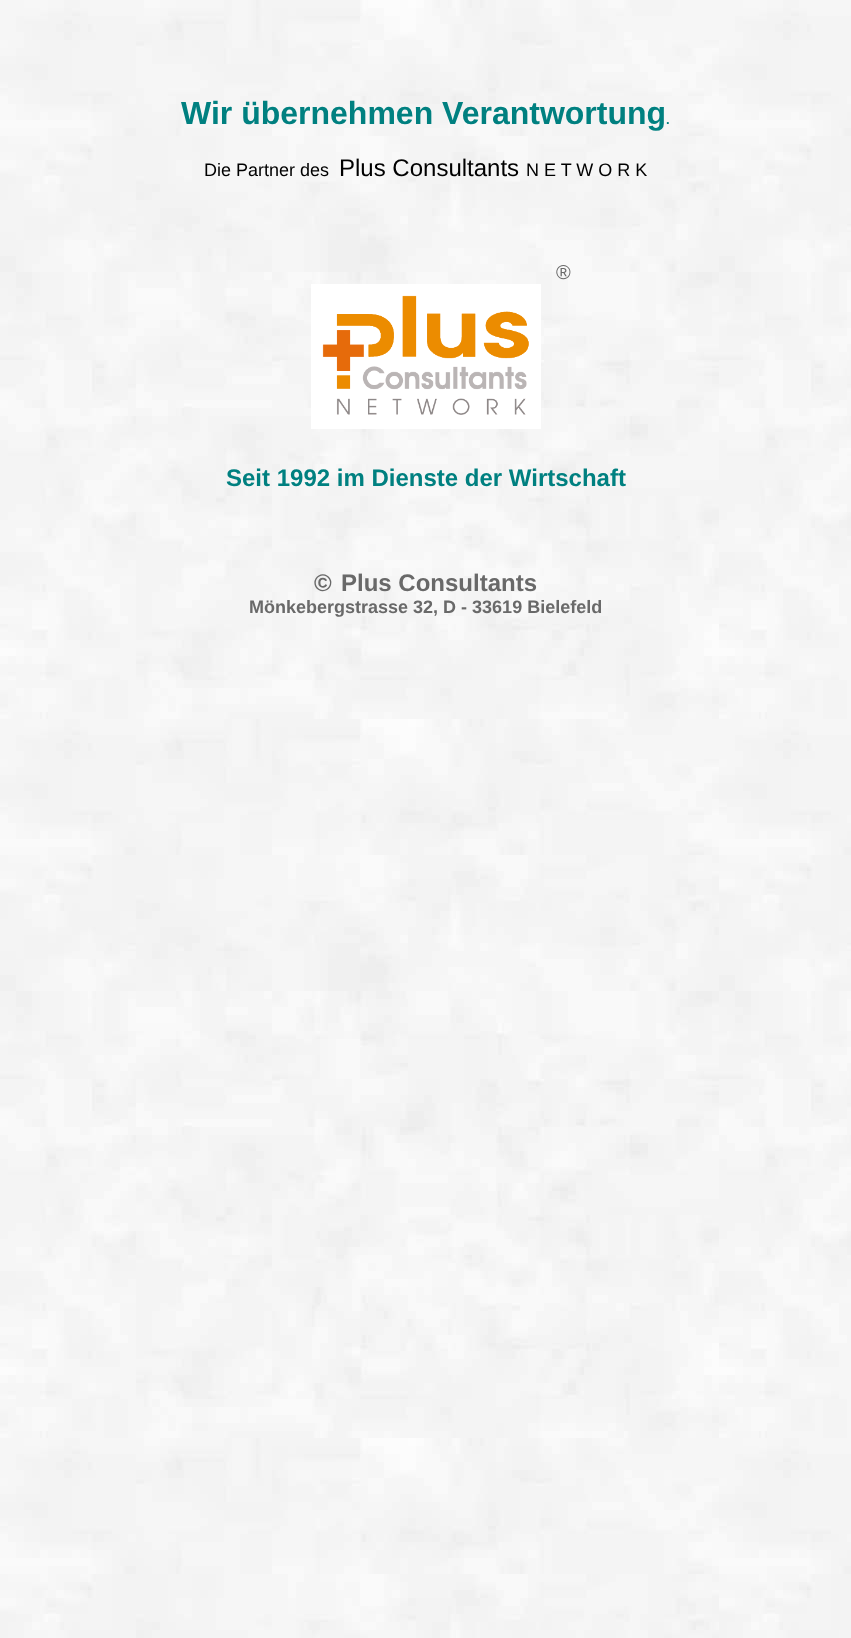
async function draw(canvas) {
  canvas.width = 851;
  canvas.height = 1638;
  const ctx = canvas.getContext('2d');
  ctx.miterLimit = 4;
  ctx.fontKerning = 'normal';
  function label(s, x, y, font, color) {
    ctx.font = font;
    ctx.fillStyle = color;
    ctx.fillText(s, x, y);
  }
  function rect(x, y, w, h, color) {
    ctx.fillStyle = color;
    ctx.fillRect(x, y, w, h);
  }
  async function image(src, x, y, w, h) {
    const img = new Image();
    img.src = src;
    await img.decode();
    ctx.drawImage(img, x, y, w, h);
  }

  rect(0, 0, 851, 1638, '#fff');
  await image('assets/img1.png', 0, 0, 851, 1638);
  label('Wir übernehmen Verantwortung', 181, 124, 'bold 32px Liberation Sans', '#008080');
  label('.', 666, 124, 'bold 13px Liberation Sans', '#008080');
  label('Die Partner des', 204, 176, '18px Liberation Sans', '#000');
  label('Plus Consultants', 339, 176, '24px Liberation Sans', '#000');
  label('N E T W O R K', 526, 176, '18px Liberation Sans', '#000');
  label('®', 556, 279, '20px Liberation Sans', '#696969');
  await image('assets/img2.png', 311, 284, 230, 145);
  label('Seit 1992 im Dienste der Wirtschaft', 226, 486, 'bold 24px Liberation Sans', '#008080');
  label('©', 314, 591, 'bold 24px Liberation Sans', '#696969');
  label('Plus Consultants', 341, 591, 'bold 24px Liberation Sans', '#696969');
  label('Mönkebergstrasse 32, D - 33619 Bielefeld', 249, 613, 'bold 18px Liberation Sans', '#696969');
}

draw(document.querySelector('canvas'));
